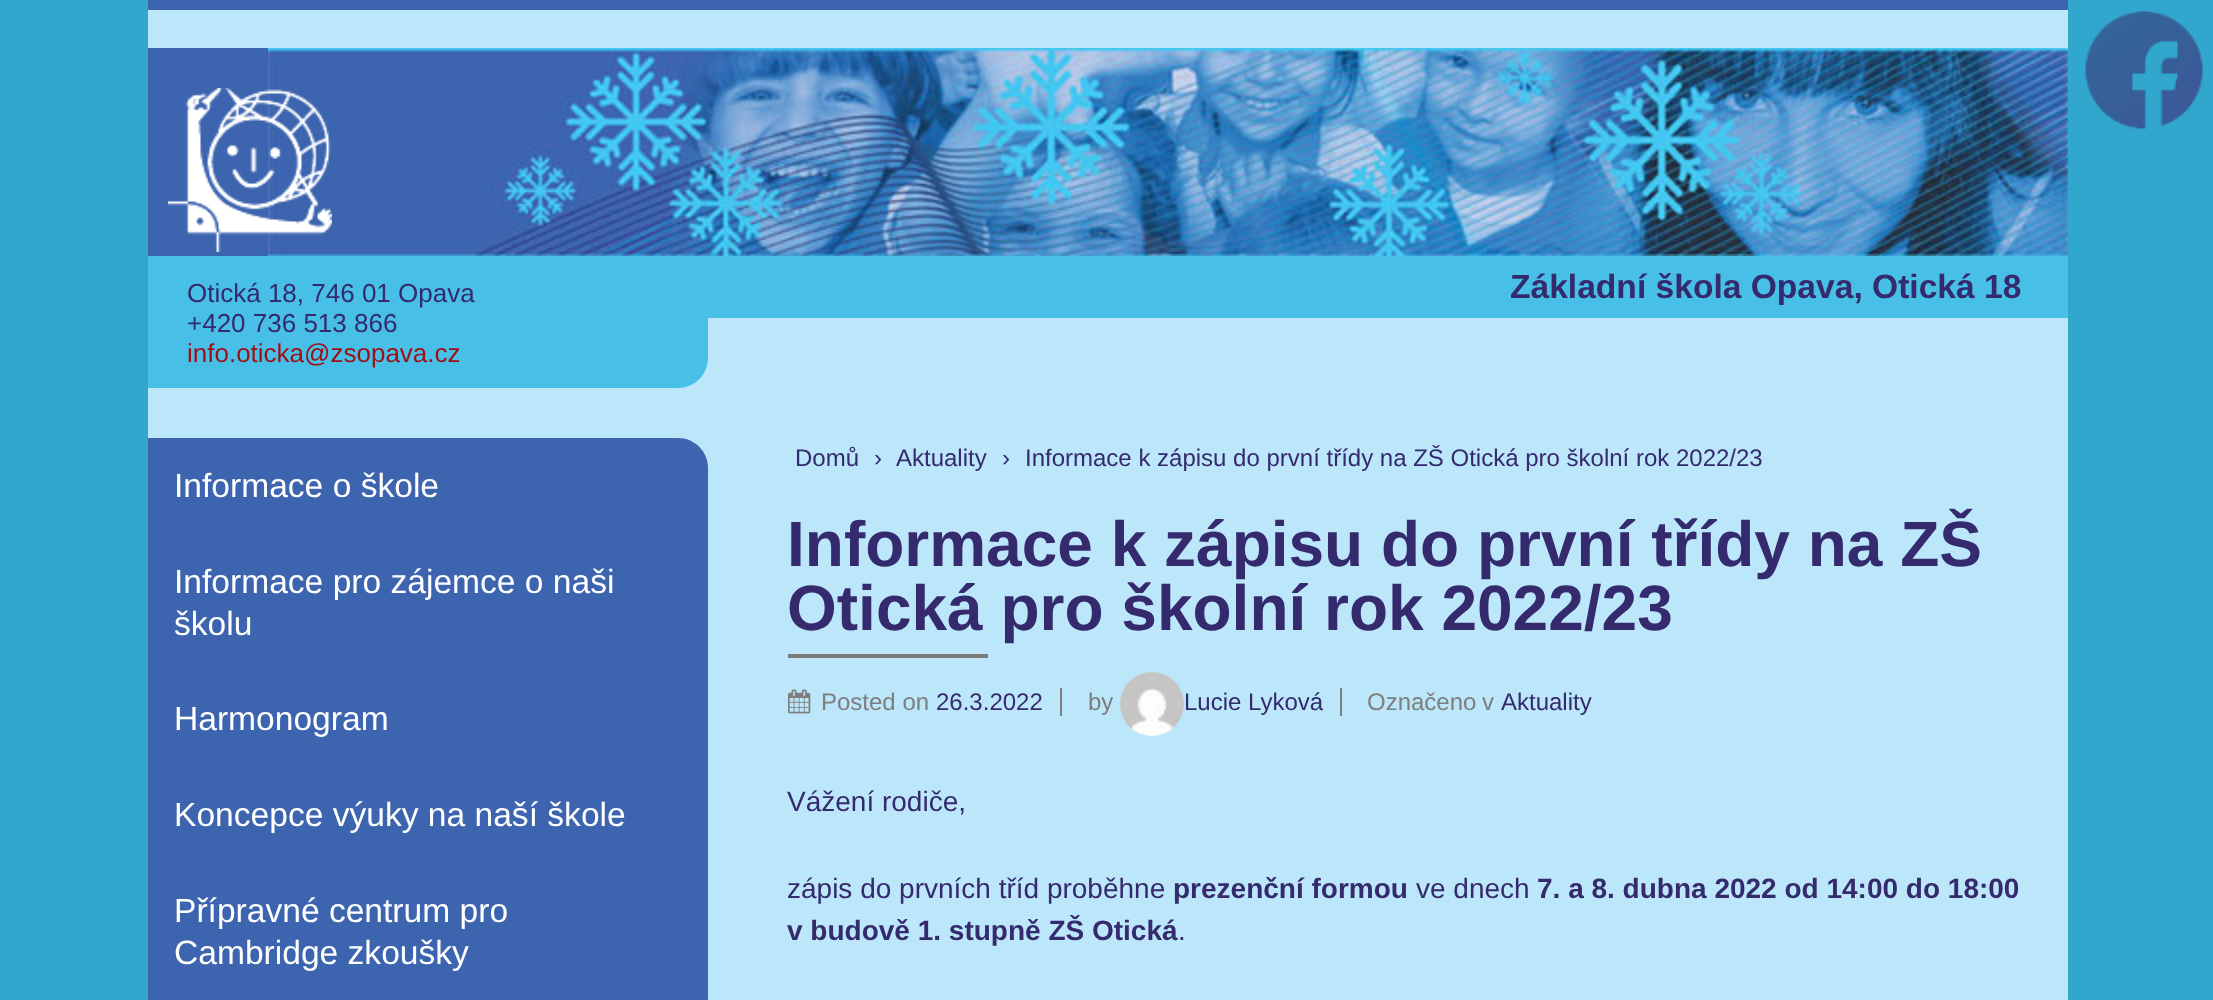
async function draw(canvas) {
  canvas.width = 2213;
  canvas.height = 1000;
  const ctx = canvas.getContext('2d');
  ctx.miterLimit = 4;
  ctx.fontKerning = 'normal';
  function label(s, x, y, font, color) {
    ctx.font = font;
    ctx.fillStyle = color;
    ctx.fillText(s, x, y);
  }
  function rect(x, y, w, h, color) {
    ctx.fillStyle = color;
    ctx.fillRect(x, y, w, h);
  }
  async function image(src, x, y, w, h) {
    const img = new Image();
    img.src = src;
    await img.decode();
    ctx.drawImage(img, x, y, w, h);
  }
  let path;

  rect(0, 0, 2213, 1000, '#32a7cd');
  rect(148, 10, 1920, 990, '#bce6fa');
  rect(148, 0, 1920, 10, '#3d64af');
  await image('assets/img1.png', 2084, 10, 120, 120);
  rect(148, 256, 1920, 62, '#47bfe6');
  rect(148, 48, 120, 208, '#3d64af');
  await image('assets/img2.png', 268, 48, 1800, 208);
  await image('assets/img3.png', 168, 88, 164, 164);
  label('Základní škola Opava, Otická 18', 1510, 298, 'bold 33.6px Liberation Sans', '#342a6d');
  ctx.fillStyle = '#47bfe6';
  ctx.beginPath();
  ctx.roundRect(148, 258, 560, 130, [0, 0, 30, 0]);
  ctx.fill();
  label('Otická 18, 746 01 Opava', 187, 302, '26px Liberation Sans', '#342a6d');
  label('+420 736 513 866', 187, 332, '26px Liberation Sans', '#342a6d');
  label('info.oticka@zsopava.cz', 187, 362, '26px Liberation Sans', '#9e1014');
  ctx.fillStyle = '#3d64af';
  path = new Path2D('M148 438H678C694.5 438 708 451.5 708 468V1000C708 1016.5 694.5 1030 678 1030H148Z');
  ctx.fill(path);
  label('Informace o škole', 174, 497, '33.6px Liberation Sans', '#fff');
  label('Informace pro zájemce o naši', 174, 593, '33.6px Liberation Sans', '#fff');
  label('školu', 174, 635, '33.6px Liberation Sans', '#fff');
  label('Harmonogram', 174, 730, '33.6px Liberation Sans', '#fff');
  label('Koncepce výuky na naší škole', 174, 826, '33.6px Liberation Sans', '#fff');
  label('Přípravné centrum pro', 174, 922, '33.6px Liberation Sans', '#fff');
  label('Cambridge zkoušky', 174, 964, '33.6px Liberation Sans', '#fff');
  label('Domů', 795, 466, '24px Liberation Sans', '#342a6d');
  label('›', 874, 466, '24px Liberation Sans', '#342a6d');
  label('Aktuality', 896, 466, '24px Liberation Sans', '#342a6d');
  label('›', 1002, 466, '24px Liberation Sans', '#342a6d');
  label('Informace k zápisu do první třídy na ZŠ Otická pro školní rok 2022/23', 1025, 466, '24px Liberation Sans', '#342a6d');
  label('Informace k zápisu do první třídy na ZŠ', 787, 566, 'bold 64px Liberation Sans', '#342a6d');
  label('Otická pro školní rok 2022/23', 787, 630, 'bold 64px Liberation Sans', '#342a6d');
  rect(788, 654, 200, 4, '#7c7b7b');
  await image('assets/img4.png', 788, 689, 23, 25);
  label('Posted on', 821, 710, '24px Liberation Sans', '#7e7e7e');
  label('26.3.2022', 936, 710, '24px Liberation Sans', '#342a6d');
  rect(1060, 688, 2, 28, '#7e7e7e');
  label('by', 1088, 710, '24px Liberation Sans', '#7e7e7e');
  await image('assets/img5.png', 1120, 672, 64, 64);
  label('Lucie Lyková', 1184, 710, '24px Liberation Sans', '#342a6d');
  rect(1340, 688, 2, 28, '#7e7e7e');
  ctx.wordSpacing = '-1px';
  label('Označeno v', 1367, 710, '24px Liberation Sans', '#7e7e7e');
  ctx.wordSpacing = '0px';
  label('Aktuality', 1501, 710, '24px Liberation Sans', '#342a6d');
  label('Vážení rodiče,', 787, 811, '28px Liberation Sans', '#342a6d');
  label('zápis do prvních tříd proběhne', 787, 898, '28px Liberation Sans', '#342a6d');
  label('prezenční formou', 1173, 898, 'bold 28px Liberation Sans', '#342a6d');
  label('ve dnech', 1416, 898, '28px Liberation Sans', '#342a6d');
  label('7. a 8. dubna 2022 od 14:00 do 18:00', 1537, 898, 'bold 28px Liberation Sans', '#342a6d');
  label('v budově 1. stupně ZŠ Otická', 787, 940, 'bold 28px Liberation Sans', '#342a6d');
  label('.', 1178, 940, '28px Liberation Sans', '#342a6d');
}

draw(document.querySelector('canvas'));
